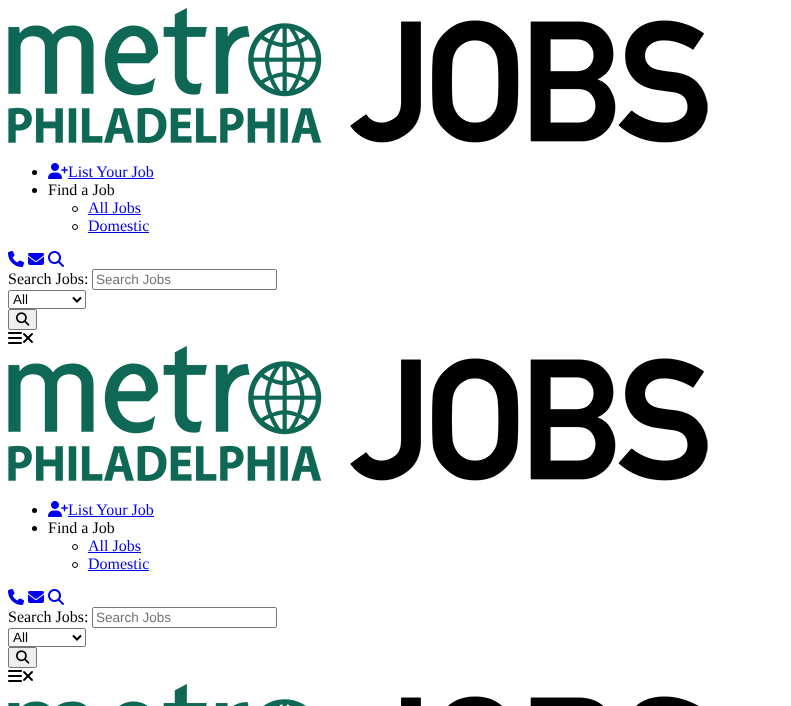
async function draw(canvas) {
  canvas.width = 791;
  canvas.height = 706;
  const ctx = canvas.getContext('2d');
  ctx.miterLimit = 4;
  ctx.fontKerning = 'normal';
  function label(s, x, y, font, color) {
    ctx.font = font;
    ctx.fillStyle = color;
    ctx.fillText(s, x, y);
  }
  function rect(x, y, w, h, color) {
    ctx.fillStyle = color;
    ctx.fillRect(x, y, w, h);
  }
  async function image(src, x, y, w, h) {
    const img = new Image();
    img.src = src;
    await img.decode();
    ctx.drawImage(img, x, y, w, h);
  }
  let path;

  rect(0, 0, 791, 706, '#fff');
  await image('assets/img1.png', 8, 8, 700, 135);
  ctx.fillStyle = '#000';
  ctx.beginPath();
  ctx.arc(34.5, 172.5, 2.5, 0, 2 * Math.PI);
  ctx.fill();
  await image('assets/img2.png', 48, 163, 20, 16);
  label('List Your Job', 68, 177, '16px Liberation Serif', '#00e');
  rect(68, 178, 86, 1, '#00e');
  ctx.fillStyle = '#000';
  ctx.beginPath();
  ctx.arc(34.5, 190.5, 2.5, 0, 2 * Math.PI);
  ctx.fill();
  label('Find a Job', 48, 195, '16px Liberation Serif', '#000');
  ctx.beginPath();
  ctx.arc(75, 209, 2.5, 0, 2 * Math.PI);
  ctx.strokeStyle = '#000';
  ctx.stroke();
  label('All Jobs', 88, 213, '16px Liberation Serif', '#00e');
  rect(88, 214, 53, 1, '#00e');
  ctx.beginPath();
  ctx.arc(75, 227, 2.5, 0, 2 * Math.PI);
  ctx.stroke();
  label('Domestic', 88, 231, '16px Liberation Serif', '#00e');
  rect(88, 232, 61, 1, '#00e');
  await image('assets/img3.png', 8, 251, 16, 16);
  await image('assets/img4.png', 28, 253, 16, 12);
  await image('assets/img5.png', 48, 251, 16, 16);
  label('Search Jobs:', 8, 284, '16px Liberation Serif', '#000');
  ctx.beginPath();
  ctx.roundRect(92.5, 269.5, 184, 20, 1.5);
  ctx.strokeStyle = '#767676';
  ctx.stroke();
  label('Search Jobs', 96, 284, '13.5px Liberation Sans', '#757575');
  ctx.beginPath();
  ctx.roundRect(8.5, 290.5, 77, 18, 1.5);
  ctx.stroke();
  path = new Path2D('M73 297.5L77 301.5L81 297.5');
  ctx.strokeStyle = '#000';
  ctx.lineWidth = 2;
  ctx.stroke(path);
  label('All', 13, 304, '13.5px Liberation Sans', '#000');
  ctx.fillStyle = '#efefef';
  ctx.beginPath();
  ctx.roundRect(8.5, 309.5, 28, 20, 1.5);
  ctx.fill();
  ctx.strokeStyle = '#767676';
  ctx.lineWidth = 1;
  ctx.stroke();
  await image('assets/img6.png', 16, 312, 14, 14);
  await image('assets/img7.png', 8, 332, 14, 12);
  await image('assets/img8.png', 23, 333, 10, 10);
  await image('assets/img1.png', 8, 346, 700, 135);
  ctx.fillStyle = '#000';
  ctx.beginPath();
  ctx.arc(34.5, 510.5, 2.5, 0, 2 * Math.PI);
  ctx.fill();
  await image('assets/img2.png', 48, 501, 20, 16);
  label('List Your Job', 68, 515, '16px Liberation Serif', '#00e');
  rect(68, 516, 86, 1, '#00e');
  ctx.fillStyle = '#000';
  ctx.beginPath();
  ctx.arc(34.5, 528.5, 2.5, 0, 2 * Math.PI);
  ctx.fill();
  label('Find a Job', 48, 533, '16px Liberation Serif', '#000');
  ctx.beginPath();
  ctx.arc(75, 547, 2.5, 0, 2 * Math.PI);
  ctx.strokeStyle = '#000';
  ctx.stroke();
  label('All Jobs', 88, 551, '16px Liberation Serif', '#00e');
  rect(88, 552, 53, 1, '#00e');
  ctx.beginPath();
  ctx.arc(75, 565, 2.5, 0, 2 * Math.PI);
  ctx.stroke();
  label('Domestic', 88, 569, '16px Liberation Serif', '#00e');
  rect(88, 570, 61, 1, '#00e');
  await image('assets/img3.png', 8, 589, 16, 16);
  await image('assets/img4.png', 28, 591, 16, 12);
  await image('assets/img5.png', 48, 589, 16, 16);
  label('Search Jobs:', 8, 622, '16px Liberation Serif', '#000');
  ctx.beginPath();
  ctx.roundRect(92.5, 607.5, 184, 20, 1.5);
  ctx.strokeStyle = '#767676';
  ctx.stroke();
  label('Search Jobs', 96, 622, '13.5px Liberation Sans', '#757575');
  ctx.beginPath();
  ctx.roundRect(8.5, 628.5, 77, 18, 1.5);
  ctx.stroke();
  path = new Path2D('M73 635.5L77 639.5L81 635.5');
  ctx.strokeStyle = '#000';
  ctx.lineWidth = 2;
  ctx.stroke(path);
  label('All', 13, 642, '13.5px Liberation Sans', '#000');
  ctx.fillStyle = '#efefef';
  ctx.beginPath();
  ctx.roundRect(8.5, 647.5, 28, 20, 1.5);
  ctx.fill();
  ctx.strokeStyle = '#767676';
  ctx.lineWidth = 1;
  ctx.stroke();
  await image('assets/img6.png', 16, 650, 14, 14);
  await image('assets/img7.png', 8, 670, 14, 12);
  await image('assets/img8.png', 23, 671, 10, 10);
  await image('assets/img9.png', 8, 684, 691, 22);
}

draw(document.querySelector('canvas'));
